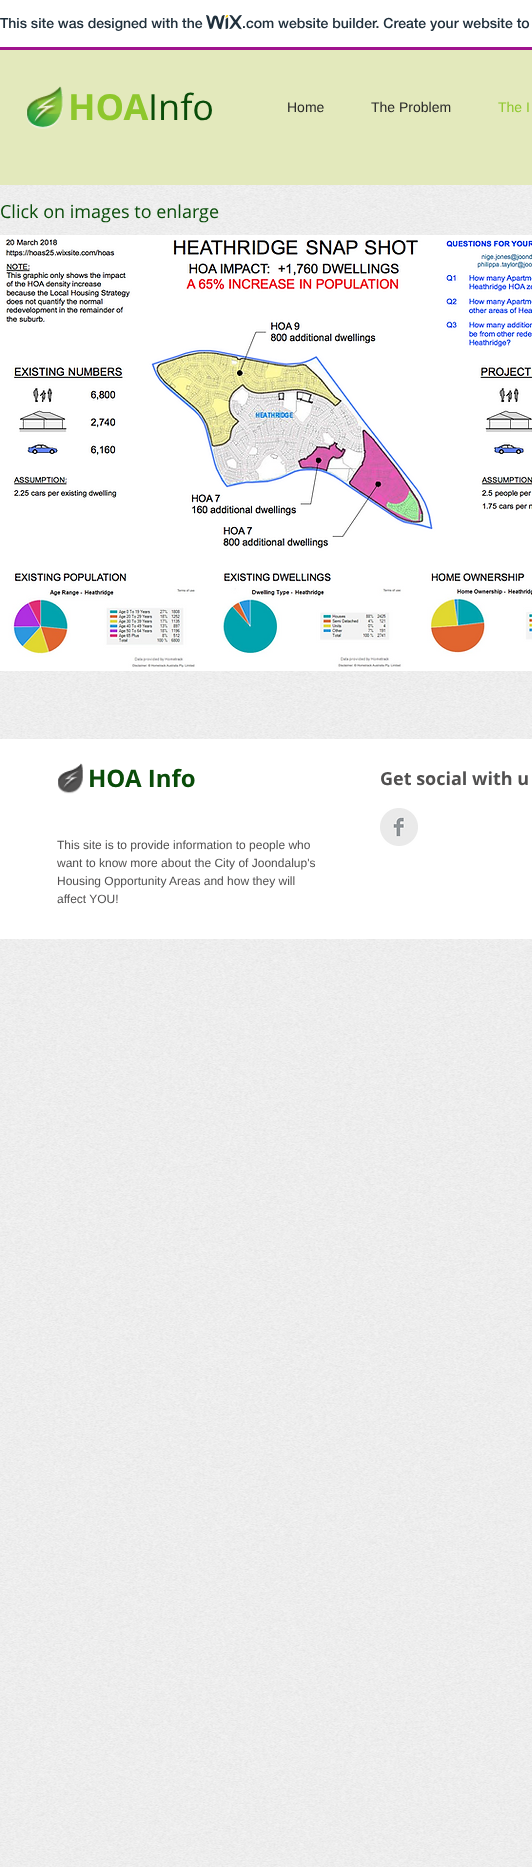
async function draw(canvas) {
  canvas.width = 532;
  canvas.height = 1867;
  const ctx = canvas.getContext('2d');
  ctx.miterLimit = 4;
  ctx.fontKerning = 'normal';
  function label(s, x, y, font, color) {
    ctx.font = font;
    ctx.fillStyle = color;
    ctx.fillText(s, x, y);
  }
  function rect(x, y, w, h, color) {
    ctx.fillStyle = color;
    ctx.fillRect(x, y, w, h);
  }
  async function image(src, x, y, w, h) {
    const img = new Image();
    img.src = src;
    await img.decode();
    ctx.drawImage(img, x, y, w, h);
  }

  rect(0, 0, 532, 1867, '#fff');
  rect(0, 47, 532, 3, '#a0138e');
  label('This site was designed with the', 0, 28, '500 14px "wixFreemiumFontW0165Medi"', '#20303c');
  await image('assets/img1.png', 206, 15, 36, 15);
  label('.com website builder. Create your website to', 242, 28, '500 14px "wixFreemiumFontW0165Medi"', '#20303c');
  rect(0, 50, 532, 135, '#e3e9bc');
  await image('assets/img2.png', 26, 86, 38, 43);
  label('HOA', 68, 120, 'bold 36px Open Sans', '#8ec72c');
  label('Info', 148, 120, '36px Open Sans', '#094c09');
  label('Home', 287, 112, '14px Liberation Sans', '#282828');
  label('The Problem', 371, 112, '14px Liberation Sans', '#282828');
  label('The I', 498, 112, '14px Liberation Sans', '#8ec72c');
  await image('assets/img6.png', 0, 185, 532, 1682);
  label('Click on images to enlarge', 0, 218, '18px Open Sans', '#094c09');
  await image('assets/img3.png', 0, 235, 532, 436);
  rect(0, 739, 532, 200, '#fff');
  await image('assets/img4.png', 58, 763, 25, 31);
  label('HOA Info', 88, 787, 'bold 24px Open Sans', '#094c09');
  label('Get social with u', 380, 785, 'bold 18px Open Sans', '#515050');
  await image('assets/img5.png', 380, 808, 38, 38);
  label('This site is to provide information to people who', 57, 849, '12px Liberation Sans', '#515050');
  label('want to know more about the City of Joondalup\'s', 57, 867, '12px Liberation Sans', '#515050');
  label('Housing Opportunity Areas and how they will', 57, 885, '12px Liberation Sans', '#515050');
  label('affect YOU!', 57, 903, '12px Liberation Sans', '#515050');
}

draw(document.querySelector('canvas'));
